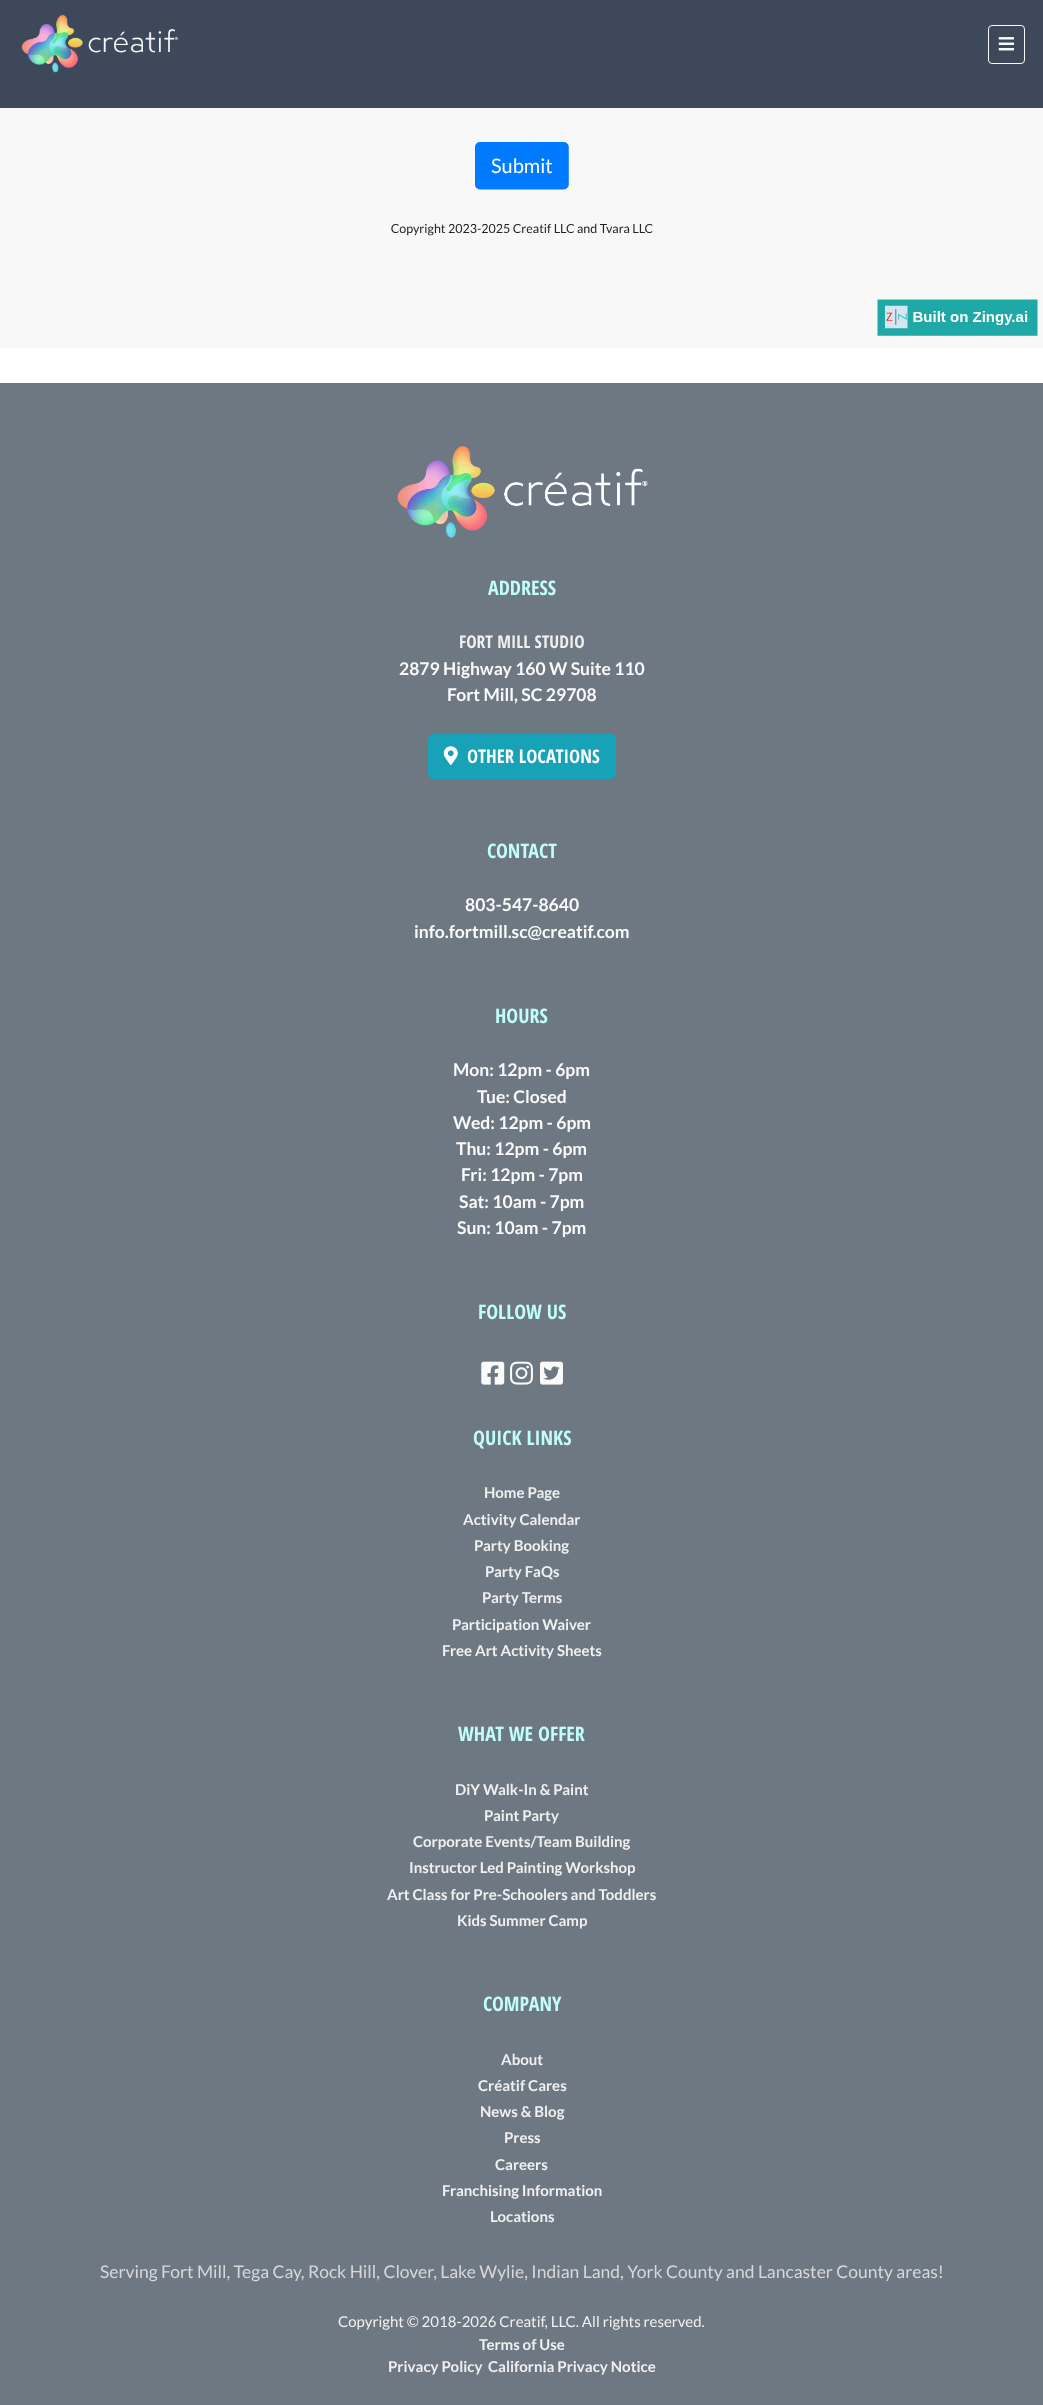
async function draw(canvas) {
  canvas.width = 1043;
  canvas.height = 2405;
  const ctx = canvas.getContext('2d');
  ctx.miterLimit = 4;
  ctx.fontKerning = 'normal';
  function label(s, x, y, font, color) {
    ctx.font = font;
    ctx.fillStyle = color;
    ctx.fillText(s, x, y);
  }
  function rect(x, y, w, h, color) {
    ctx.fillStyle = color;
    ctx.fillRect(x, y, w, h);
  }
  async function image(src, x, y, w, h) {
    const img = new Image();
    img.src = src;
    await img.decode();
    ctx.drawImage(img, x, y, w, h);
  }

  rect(0, 0, 1043, 2405, '#fff');
  rect(0, 0, 1043, 108, '#3d485a');
  await image('assets/img1.png', 21, 14, 158, 59);
  ctx.beginPath();
  ctx.roundRect(988.5, 25.5, 36, 38, 3.5);
  ctx.strokeStyle = '#f8f9fa';
  ctx.stroke();
  await image('assets/img2.png', 998, 37, 17, 14);
  await image('assets/img3.png', 0, 108, 1043, 240);
  rect(0, 383, 1043, 2022, '#6d7883');
  await image('assets/img4.png', 397, 446, 251, 92);
  label('ADDRESS', 488, 595, 'bold 20px Open Sans Condensed', '#c1fefa');
  label('FORT MILL STUDIO', 459, 648, 'bold 17.5px Open Sans Condensed', '#f0f0f0');
  label('2879 Highway 160 W Suite 110', 399, 675, 'bold 17.5px Lato', '#fafafa');
  label('Fort Mill, SC 29708', 447, 701, 'bold 17.5px Lato', '#fafafa');
  ctx.fillStyle = '#17a2b8';
  ctx.beginPath();
  ctx.roundRect(428.5, 734.5, 187, 44, 4.5);
  ctx.fill();
  ctx.strokeStyle = '#17a2b8';
  ctx.stroke();
  await image('assets/img5.png', 443, 746, 15, 19);
  label('OTHER LOCATIONS', 467, 763, 'bold 18.75px Open Sans Condensed', '#fafafa');
  label('CONTACT', 487, 858, 'bold 20px Open Sans Condensed', '#c1fefa');
  label('803-547-8640', 465, 911, 'bold 17.5px Lato', '#fafafa');
  label('info.fortmill.sc@creatif.com', 414, 938, 'bold 17.5px Lato', '#fafafa');
  label('HOURS', 495, 1023, 'bold 20px Open Sans Condensed', '#c1fefa');
  label('Mon: 12pm - 6pm', 453, 1076, 'bold 17.5px Lato', '#fafafa');
  label('Tue: Closed', 477, 1103, 'bold 17.5px Lato', '#fafafa');
  label('Wed: 12pm - 6pm', 453, 1129, 'bold 17.5px Lato', '#fafafa');
  label('Thu: 12pm - 6pm', 456, 1155, 'bold 17.5px Lato', '#fafafa');
  label('Fri: 12pm - 7pm', 461, 1181, 'bold 17.5px Lato', '#fafafa');
  label('Sat: 10am - 7pm', 459, 1208, 'bold 17.5px Lato', '#fafafa');
  label('Sun: 10am - 7pm', 457, 1234, 'bold 17.5px Lato', '#fafafa');
  label('FOLLOW US', 478, 1319, 'bold 20px Open Sans Condensed', '#c1fefa');
  await image('assets/img6.png', 481, 1361, 24, 24);
  await image('assets/img7.png', 510, 1361, 23, 24);
  await image('assets/img8.png', 540, 1361, 23, 24);
  label('QUICK LINKS', 473, 1445, 'bold 20px Open Sans Condensed', '#c1fefa');
  label('Home Page', 484, 1498, 'bold 15px Lato', '#f0f0f0');
  label('Activity Calendar', 463, 1525, 'bold 15px Lato', '#f0f0f0');
  label('Party Booking', 474, 1551, 'bold 15px Lato', '#f0f0f0');
  label('Party FaQs', 485, 1577, 'bold 15px Lato', '#f0f0f0');
  label('Party Terms', 482, 1603, 'bold 15px Lato', '#f0f0f0');
  label('Participation Waiver', 452, 1630, 'bold 15px Lato', '#f0f0f0');
  label('Free Art Activity Sheets', 442, 1656, 'bold 15px Lato', '#f0f0f0');
  label('WHAT WE OFFER', 458, 1741, 'bold 20px Open Sans Condensed', '#c1fefa');
  label('DiY Walk-In & Paint', 455, 1795, 'bold 15px Lato', '#f0f0f0');
  label('Paint Party', 484, 1821, 'bold 15px Lato', '#f0f0f0');
  label('Corporate Events/Team Building', 413, 1847, 'bold 15px Lato', '#f0f0f0');
  label('Instructor Led Painting Workshop', 409, 1873, 'bold 15px Lato', '#f0f0f0');
  label('Art Class for Pre-Schoolers and Toddlers', 387, 1900, 'bold 15px Lato', '#f0f0f0');
  label('Kids Summer Camp', 457, 1926, 'bold 15px Lato', '#f0f0f0');
  label('COMPANY', 483, 2011, 'bold 20px Open Sans Condensed', '#c1fefa');
  label('About', 501, 2065, 'bold 15px Lato', '#f0f0f0');
  label('Créatif Cares', 478, 2091, 'bold 15px Lato', '#f0f0f0');
  label('News & Blog', 480, 2117, 'bold 15px Lato', '#f0f0f0');
  label('Press', 504, 2143, 'bold 15px Lato', '#f0f0f0');
  label('Careers', 495, 2170, 'bold 15px Lato', '#f0f0f0');
  label('Franchising Information', 442, 2196, 'bold 15px Lato', '#f0f0f0');
  label('Locations', 490, 2222, 'bold 15px Lato', '#f0f0f0');
  label('Serving Fort Mill, Tega Cay, Rock Hill, Clover, Lake Wylie, Indian Land, York County and Lancaster County areas!', 100, 2278, '17.5px Lato', '#d8d8d8');
  label('Copyright © 2018-2026 Creatif, LLC. All rights reserved.', 338, 2327, '15px Lato', '#f0f0f0');
  label('Terms of Use', 479, 2350, 'bold 15px Lato', '#f0f0f0');
  label('Privacy Policy', 388, 2372, 'bold 15px Lato', '#f0f0f0');
  label('California Privacy Notice', 488, 2372, 'bold 15px Lato', '#f0f0f0');
}

draw(document.querySelector('canvas'));
